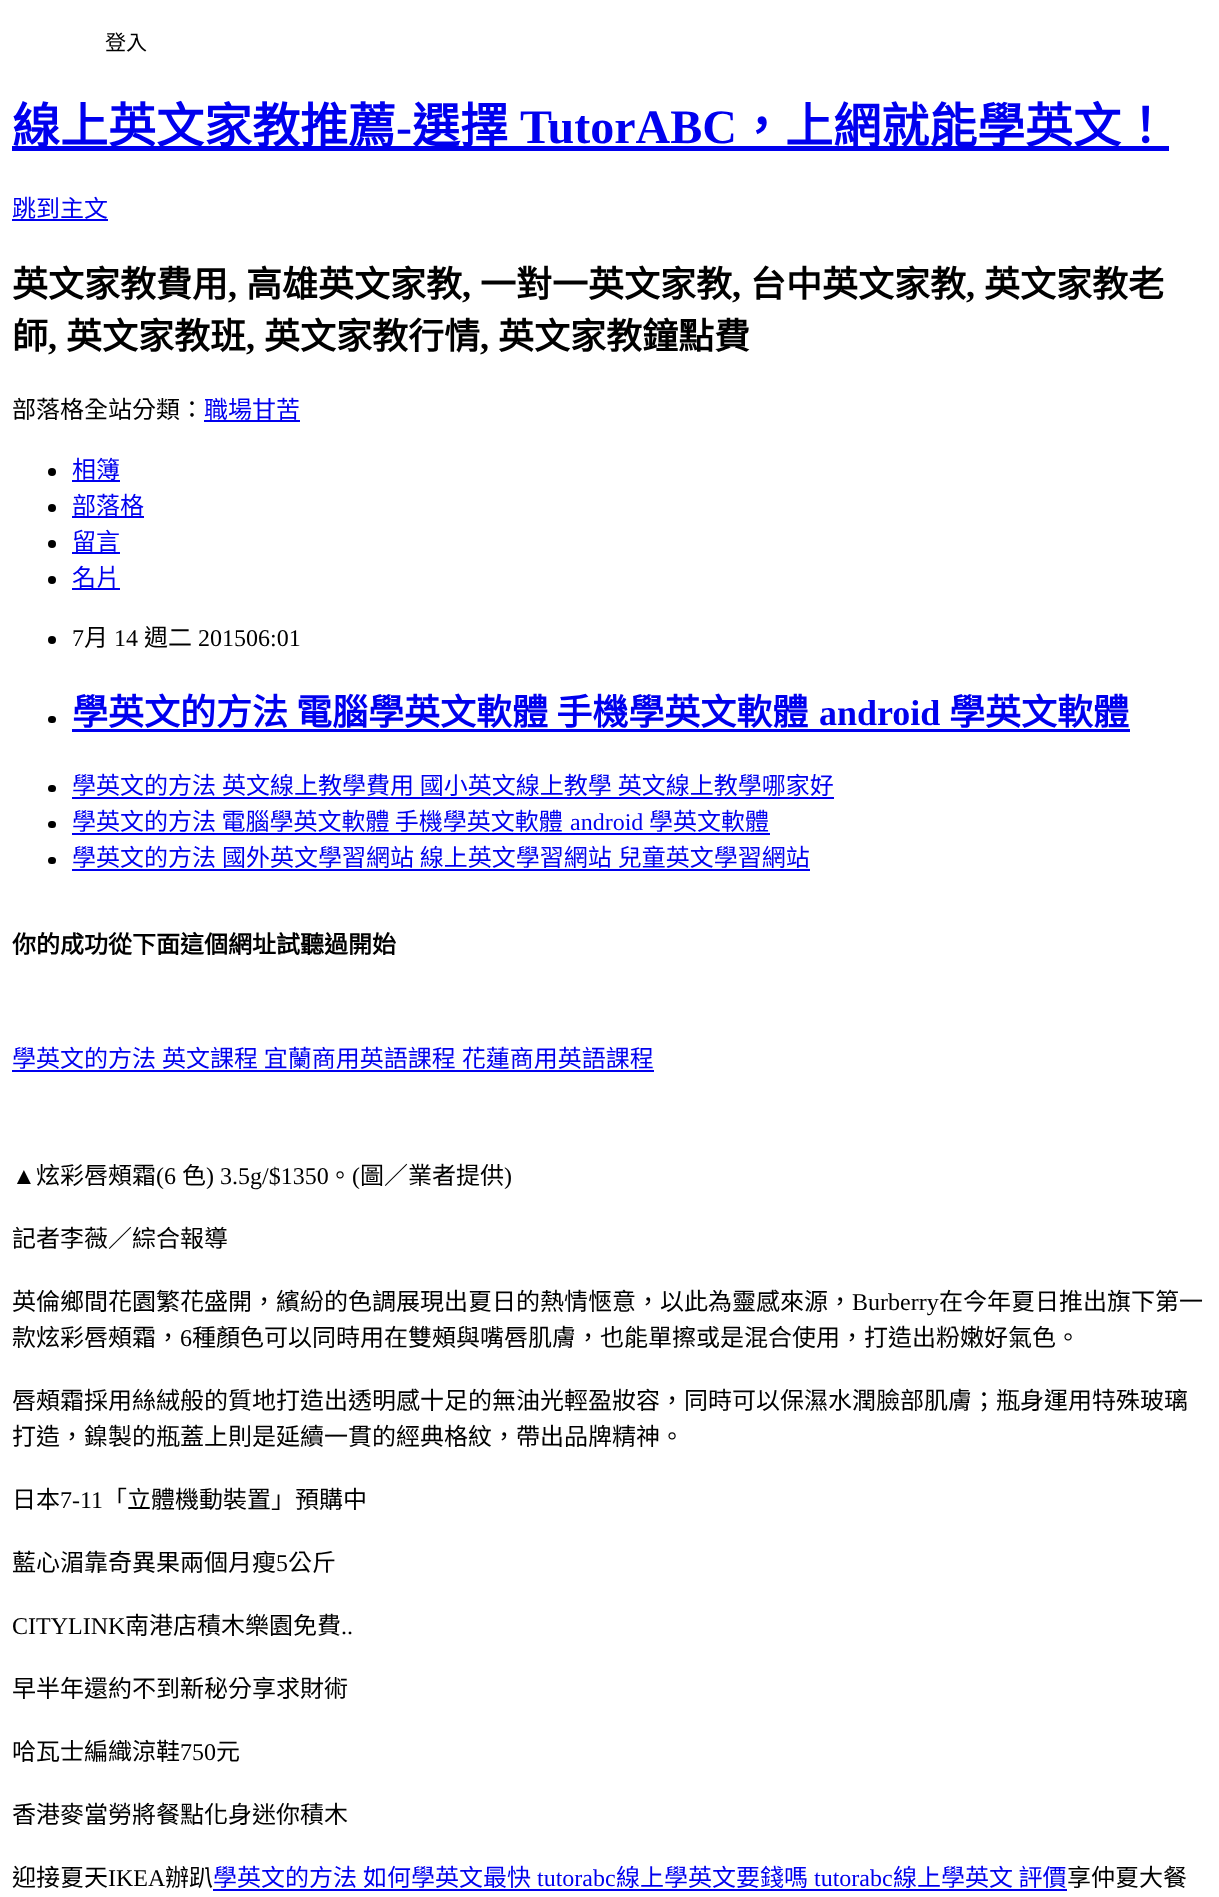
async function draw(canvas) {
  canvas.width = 1219;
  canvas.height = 1897;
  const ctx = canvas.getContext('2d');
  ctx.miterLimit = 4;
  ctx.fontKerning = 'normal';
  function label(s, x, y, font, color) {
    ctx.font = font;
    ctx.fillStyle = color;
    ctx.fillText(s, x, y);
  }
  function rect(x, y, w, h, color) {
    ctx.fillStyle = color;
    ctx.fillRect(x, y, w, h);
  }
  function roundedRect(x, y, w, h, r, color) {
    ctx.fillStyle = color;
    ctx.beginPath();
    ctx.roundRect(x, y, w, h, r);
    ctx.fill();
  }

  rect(0, 0, 1219, 1897, '#fff');
  label('登入', 105, 50, '21px Noto Sans CJK TC', '#000');
  rect(12, 146, 1157, 5, '#00e');
  label('線上英文家教推薦', 12, 143, 'bold 48px Noto Sans CJK TC', '#00e');
  label('-', 396, 143, 'bold 48px Liberation Serif', '#00e');
  label('選擇', 412, 143, 'bold 48px Noto Sans CJK TC', '#00e');
  label('TutorABC', 520, 143, 'bold 48px Liberation Serif', '#00e');
  label('，上網就能學英文！', 737, 143, 'bold 48px Noto Sans CJK TC', '#00e');
  label('跳到主文', 12, 217, '24px Noto Sans CJK TC', '#00e');
  rect(12, 219, 96, 2, '#00e');
  label('英文家教費用', 12, 297, 'bold 36px Noto Sans CJK TC', '#000');
  label(',', 228, 297, 'bold 36px Liberation Serif', '#000');
  label('高雄英文家教', 246, 297, 'bold 36px Noto Sans CJK TC', '#000');
  label(',', 462, 297, 'bold 36px Liberation Serif', '#000');
  label('一對一英文家教', 480, 297, 'bold 36px Noto Sans CJK TC', '#000');
  label(',', 732, 297, 'bold 36px Liberation Serif', '#000');
  label('台中英文家教', 750, 297, 'bold 36px Noto Sans CJK TC', '#000');
  label(',', 966, 297, 'bold 36px Liberation Serif', '#000');
  label('英文家教老', 984, 297, 'bold 36px Noto Sans CJK TC', '#000');
  label('師', 12, 349, 'bold 36px Noto Sans CJK TC', '#000');
  label(',', 48, 349, 'bold 36px Liberation Serif', '#000');
  label('英文家教班', 66, 349, 'bold 36px Noto Sans CJK TC', '#000');
  label(',', 246, 349, 'bold 36px Liberation Serif', '#000');
  label('英文家教行情', 264, 349, 'bold 36px Noto Sans CJK TC', '#000');
  label(',', 480, 349, 'bold 36px Liberation Serif', '#000');
  label('英文家教鐘點費', 498, 349, 'bold 36px Noto Sans CJK TC', '#000');
  label('部落格全站分類：', 12, 418, '24px Noto Sans CJK TC', '#000');
  label('職場甘苦', 204, 418, '24px Noto Sans CJK TC', '#00e');
  rect(204, 420, 96, 2, '#00e');
  ctx.fillStyle = '#000';
  ctx.beginPath();
  ctx.arc(52, 472, 4, 0, 2 * Math.PI);
  ctx.fill();
  label('相簿', 72, 478, '24px Noto Sans CJK TC', '#00e');
  rect(72, 480, 48, 2, '#00e');
  ctx.fillStyle = '#000';
  ctx.beginPath();
  ctx.arc(52, 508, 4, 0, 2 * Math.PI);
  ctx.fill();
  label('部落格', 72, 514, '24px Noto Sans CJK TC', '#00e');
  rect(72, 516, 72, 2, '#00e');
  ctx.fillStyle = '#000';
  ctx.beginPath();
  ctx.arc(52, 544, 4, 0, 2 * Math.PI);
  ctx.fill();
  label('留言', 72, 550, '24px Noto Sans CJK TC', '#00e');
  rect(72, 552, 48, 2, '#00e');
  ctx.fillStyle = '#000';
  ctx.beginPath();
  ctx.arc(52, 580, 4, 0, 2 * Math.PI);
  ctx.fill();
  label('名片', 72, 586, '24px Noto Sans CJK TC', '#00e');
  rect(72, 588, 48, 2, '#00e');
  ctx.fillStyle = '#000';
  ctx.beginPath();
  ctx.arc(52, 640, 4, 0, 2 * Math.PI);
  ctx.fill();
  label('7', 72, 646, '24px Liberation Serif', '#000');
  label('月', 84, 646, '24px Noto Sans CJK TC', '#000');
  label('14', 114, 646, '24px Liberation Serif', '#000');
  label('週二', 144, 646, '24px Noto Sans CJK TC', '#000');
  label('201506:01', 198, 646, '24px Liberation Serif', '#000');
  roundedRect(48, 716, 8, 7, 3.5, '#000');
  label('學英文的方法 電腦學英文軟體 手機學英文軟體', 72, 725, 'bold 36px Noto Sans CJK TC', '#00e');
  label('android', 819, 725, 'bold 36px Liberation Serif', '#00e');
  rect(72, 729, 1058, 3, '#00e');
  label('學英文軟體', 949, 725, 'bold 36px Noto Sans CJK TC', '#00e');
  roundedRect(48, 785, 8, 7, 3.5, '#000');
  ctx.wordSpacing = '0.5px';
  label('學英文的方法 英文線上教學費用 國小英文線上教學 英文線上教學哪家好', 72, 794, '24px Noto Sans CJK TC', '#00e');
  rect(72, 797, 762, 2, '#00e');
  roundedRect(48, 821, 8, 7, 3.5, '#000');
  ctx.wordSpacing = '0px';
  label('學英文的方法 電腦學英文軟體 手機學英文軟體', 72, 830, '24px Noto Sans CJK TC', '#00e');
  label('android', 570, 830, '24px Liberation Serif', '#00e');
  rect(72, 833, 698, 2, '#00e');
  label('學英文軟體', 649, 830, '24px Noto Sans CJK TC', '#00e');
  roundedRect(48, 857, 8, 7, 3.5, '#000');
  ctx.wordSpacing = '0.5px';
  label('學英文的方法 國外英文學習網站 線上英文學習網站 兒童英文學習網站', 72, 866, '24px Noto Sans CJK TC', '#00e');
  rect(72, 869, 738, 2, '#00e');
  ctx.wordSpacing = '0px';
  label('你的成功從下面這個網址試聽過開始', 12, 953, 'bold 24px Noto Sans CJK TC', '#000');
  ctx.wordSpacing = '0.5px';
  label('學英文的方法 英文課程 宜蘭商用英語課程 花蓮商用英語課程', 12, 1067, '24px Noto Sans CJK TC', '#00e');
  rect(12, 1070, 642, 2, '#00e');
  ctx.wordSpacing = '0px';
  label('▲', 12, 1184, '24px Liberation Serif', '#000');
  label('炫彩唇頰霜', 36, 1184, '24px Noto Sans CJK TC', '#000');
  label('(6', 156, 1184, '24px Liberation Serif', '#000');
  label('色', 182, 1184, '24px Noto Sans CJK TC', '#000');
  label(') 3.5g/$1350', 206, 1184, '24px Liberation Serif', '#000');
  label('。', 328, 1184, '24px Noto Sans CJK TC', '#000');
  label('(', 352, 1184, '24px Liberation Serif', '#000');
  label('圖／業者提供', 360, 1184, '24px Noto Sans CJK TC', '#000');
  label(')', 504, 1184, '24px Liberation Serif', '#000');
  label('記者李薇／綜合報導', 12, 1247, '24px Noto Sans CJK TC', '#000');
  label('英倫鄉間花園繁花盛開，繽紛的色調展現出夏日的熱情愜意，以此為靈感來源，', 12, 1310, '24px Noto Sans CJK TC', '#000');
  label('Burberry', 852, 1310, '24px Liberation Serif', '#000');
  label('在今年夏日推出旗下第一', 939, 1310, '24px Noto Sans CJK TC', '#000');
  label('款炫彩唇頰霜，', 12, 1346, '24px Noto Sans CJK TC', '#000');
  label('6', 180, 1346, '24px Liberation Serif', '#000');
  label('種顏色可以同時用在雙頰與嘴唇肌膚，也能單擦或是混合使用，打造出粉嫩好氣色。', 192, 1346, '24px Noto Sans CJK TC', '#000');
  label('唇頰霜採用絲絨般的質地打造出透明感十足的無油光輕盈妝容，同時可以保濕水潤臉部肌膚；瓶身運用特殊玻璃', 12, 1409, '24px Noto Sans CJK TC', '#000');
  label('打造，鎳製的瓶蓋上則是延續一貫的經典格紋，帶出品牌精神。', 12, 1445, '24px Noto Sans CJK TC', '#000');
  label('日本', 12, 1508, '24px Noto Sans CJK TC', '#000');
  label('7-11', 60, 1508, '24px Liberation Serif', '#000');
  label('「立體機動裝置」預購中', 103, 1508, '24px Noto Sans CJK TC', '#000');
  label('藍心湄靠奇異果兩個月瘦', 12, 1571, '24px Noto Sans CJK TC', '#000');
  label('5', 276, 1571, '24px Liberation Serif', '#000');
  label('公斤', 288, 1571, '24px Noto Sans CJK TC', '#000');
  label('CITYLINK', 12, 1634, '24px Liberation Serif', '#000');
  label('南港店積木樂園免費', 125, 1634, '24px Noto Sans CJK TC', '#000');
  label('..', 341, 1634, '24px Liberation Serif', '#000');
  label('早半年還約不到新秘分享求財術', 12, 1697, '24px Noto Sans CJK TC', '#000');
  label('哈瓦士編織涼鞋', 12, 1760, '24px Noto Sans CJK TC', '#000');
  label('750', 180, 1760, '24px Liberation Serif', '#000');
  label('元', 216, 1760, '24px Noto Sans CJK TC', '#000');
  label('香港麥當勞將餐點化身迷你積木', 12, 1823, '24px Noto Sans CJK TC', '#000');
  label('迎接夏天', 12, 1886, '24px Noto Sans CJK TC', '#000');
  label('IKEA', 108, 1886, '24px Liberation Serif', '#000');
  label('辦趴', 165, 1886, '24px Noto Sans CJK TC', '#000');
  ctx.wordSpacing = '0.5px';
  label('學英文的方法 如何學英文最快', 213, 1886, '24px Noto Sans CJK TC', '#00e');
  ctx.wordSpacing = '0px';
  label('tutorabc', 537, 1886, '24px Liberation Serif', '#00e');
  rect(213, 1889, 854, 2, '#00e');
  label('線上學英文要錢嗎', 616, 1886, '24px Noto Sans CJK TC', '#00e');
  label('tutorabc', 814, 1886, '24px Liberation Serif', '#00e');
  label('線上學英文 評價', 893, 1886, '24px Noto Sans CJK TC', '#00e');
  label('享仲夏大餐', 1067, 1886, '24px Noto Sans CJK TC', '#000');
}

draw(document.querySelector('canvas'));
